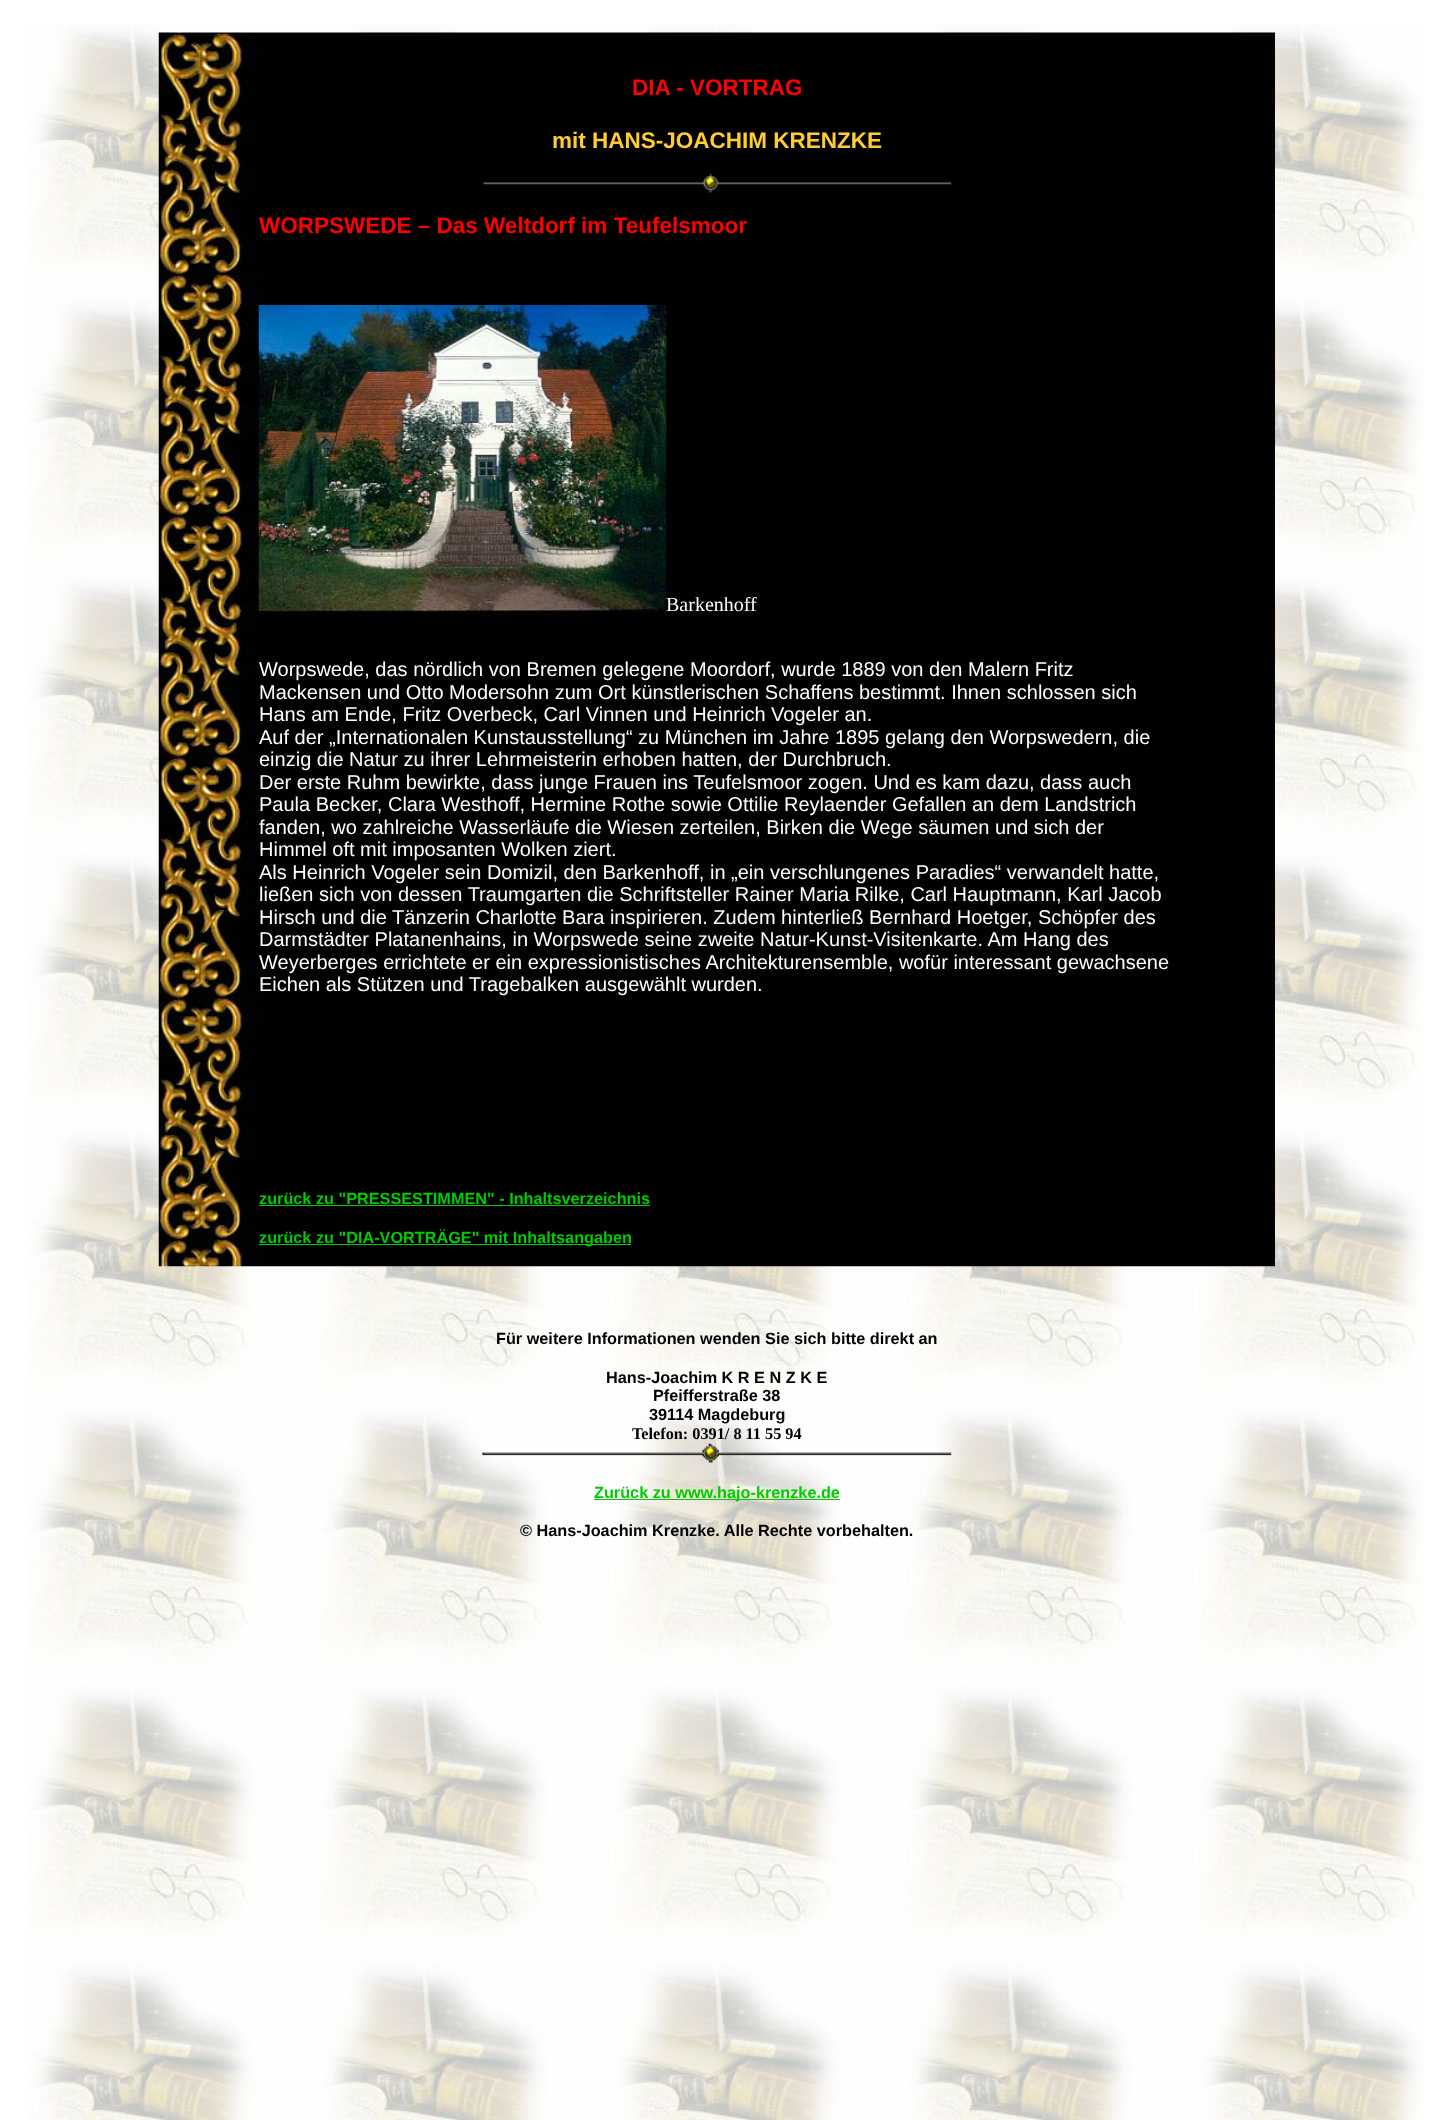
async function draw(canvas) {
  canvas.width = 1433;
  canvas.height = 2120;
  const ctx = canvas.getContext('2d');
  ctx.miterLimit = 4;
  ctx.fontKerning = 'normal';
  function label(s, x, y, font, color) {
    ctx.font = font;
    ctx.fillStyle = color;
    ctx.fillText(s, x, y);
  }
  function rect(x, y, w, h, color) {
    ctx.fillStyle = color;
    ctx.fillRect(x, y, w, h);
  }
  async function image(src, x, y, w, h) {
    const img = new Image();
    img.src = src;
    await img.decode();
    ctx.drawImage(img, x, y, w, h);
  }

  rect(0, 0, 1433, 2120, '#fff');
  await image('assets/img1.png', 29, 24, 1394, 2096);
  await image('assets/img2.png', 158, 32, 1117, 1235);
  label('DIA - VORTRAG', 632, 95, 'bold 22.5px Liberation Sans', '#f00');
  label('mit HANS-JOACHIM KRENZKE', 552, 148, 'bold 22.5px Liberation Sans', '#fc3');
  await image('assets/img3.png', 482, 173, 470, 20);
  label('WORPSWEDE – Das Weltdorf im Teufelsmoor', 259, 233, 'bold 22.5px Liberation Sans', '#f00');
  await image('assets/img4.png', 258, 305, 409, 307);
  label('Barkenhoff', 666, 611, '20px Liberation Serif', '#fff');
  label('Worpswede, das nördlich von Bremen gelegene Moordorf, wurde 1889 von den Malern Fritz', 259, 676, '20px Liberation Sans', '#fff');
  label('Mackensen und Otto Modersohn zum Ort künstlerischen Schaffens bestimmt. Ihnen schlossen sich', 259, 699, '20px Liberation Sans', '#fff');
  label('Hans am Ende, Fritz Overbeck, Carl Vinnen und Heinrich Vogeler an.', 259, 721, '20px Liberation Sans', '#fff');
  label('Auf der „Internationalen Kunstausstellung“ zu München im Jahre 1895 gelang den Worpswedern, die', 259, 744, '20px Liberation Sans', '#fff');
  label('einzig die Natur zu ihrer Lehrmeisterin erhoben hatten, der Durchbruch.', 259, 766, '20px Liberation Sans', '#fff');
  label('Der erste Ruhm bewirkte, dass junge Frauen ins Teufelsmoor zogen. Und es kam dazu, dass auch', 259, 789, '20px Liberation Sans', '#fff');
  label('Paula Becker, Clara Westhoff, Hermine Rothe sowie Ottilie Reylaender Gefallen an dem Landstrich', 259, 811, '20px Liberation Sans', '#fff');
  label('fanden, wo zahlreiche Wasserläufe die Wiesen zerteilen, Birken die Wege säumen und sich der', 259, 834, '20px Liberation Sans', '#fff');
  label('Himmel oft mit imposanten Wolken ziert.', 259, 856, '20px Liberation Sans', '#fff');
  label('Als Heinrich Vogeler sein Domizil, den Barkenhoff, in „ein verschlungenes Paradies“ verwandelt hatte,', 259, 879, '20px Liberation Sans', '#fff');
  label('ließen sich von dessen Traumgarten die Schriftsteller Rainer Maria Rilke, Carl Hauptmann, Karl Jacob', 259, 901, '20px Liberation Sans', '#fff');
  label('Hirsch und die Tänzerin Charlotte Bara inspirieren. Zudem hinterließ Bernhard Hoetger, Schöpfer des', 259, 924, '20px Liberation Sans', '#fff');
  label('Darmstädter Platanenhains, in Worpswede seine zweite Natur-Kunst-Visitenkarte. Am Hang des', 259, 946, '20px Liberation Sans', '#fff');
  label('Weyerberges errichtete er ein expressionistisches Architekturensemble, wofür interessant gewachsene', 259, 969, '20px Liberation Sans', '#fff');
  label('Eichen als Stützen und Tragebalken ausgewählt wurden.', 259, 991, '20px Liberation Sans', '#fff');
  label('zurück zu "PRESSESTIMMEN" - Inhaltsverzeichnis', 259, 1204, 'bold 16.25px Liberation Sans', '#0c0');
  rect(259, 1205, 391, 1, '#0c0');
  rect(259, 1244, 372, 1, '#0c0');
  label('zurück zu "DIA-VORTRÄGE" mit Inhaltsangaben', 259, 1243, 'bold 16.25px Liberation Sans', '#0c0');
  label('Für weitere Informationen wenden Sie sich bitte direkt an', 496, 1344, 'bold 16.25px Liberation Sans', '#000');
  label('Hans-Joachim K R E N Z K E', 606, 1383, 'bold 16.25px Liberation Sans', '#000');
  label('Pfeifferstraße 38', 653, 1401, 'bold 16.25px Liberation Sans', '#000');
  label('39114 Magdeburg', 649, 1420, 'bold 16.25px Liberation Sans', '#000');
  label('Telefon: 0391/ 8 11 55 94', 632, 1439, 'bold 16.25px Liberation Serif', '#000');
  await image('assets/img5.png', 482, 1443, 470, 20);
  rect(594, 1499, 246, 1, '#0c0');
  label('Zurück zu www.hajo-krenzke.de', 594, 1498, 'bold 16.25px Liberation Sans', '#0c0');
  label('© Hans-Joachim Krenzke. Alle Rechte vorbehalten.', 520, 1536, 'bold 16.25px Liberation Sans', '#000');
}

draw(document.querySelector('canvas'));
